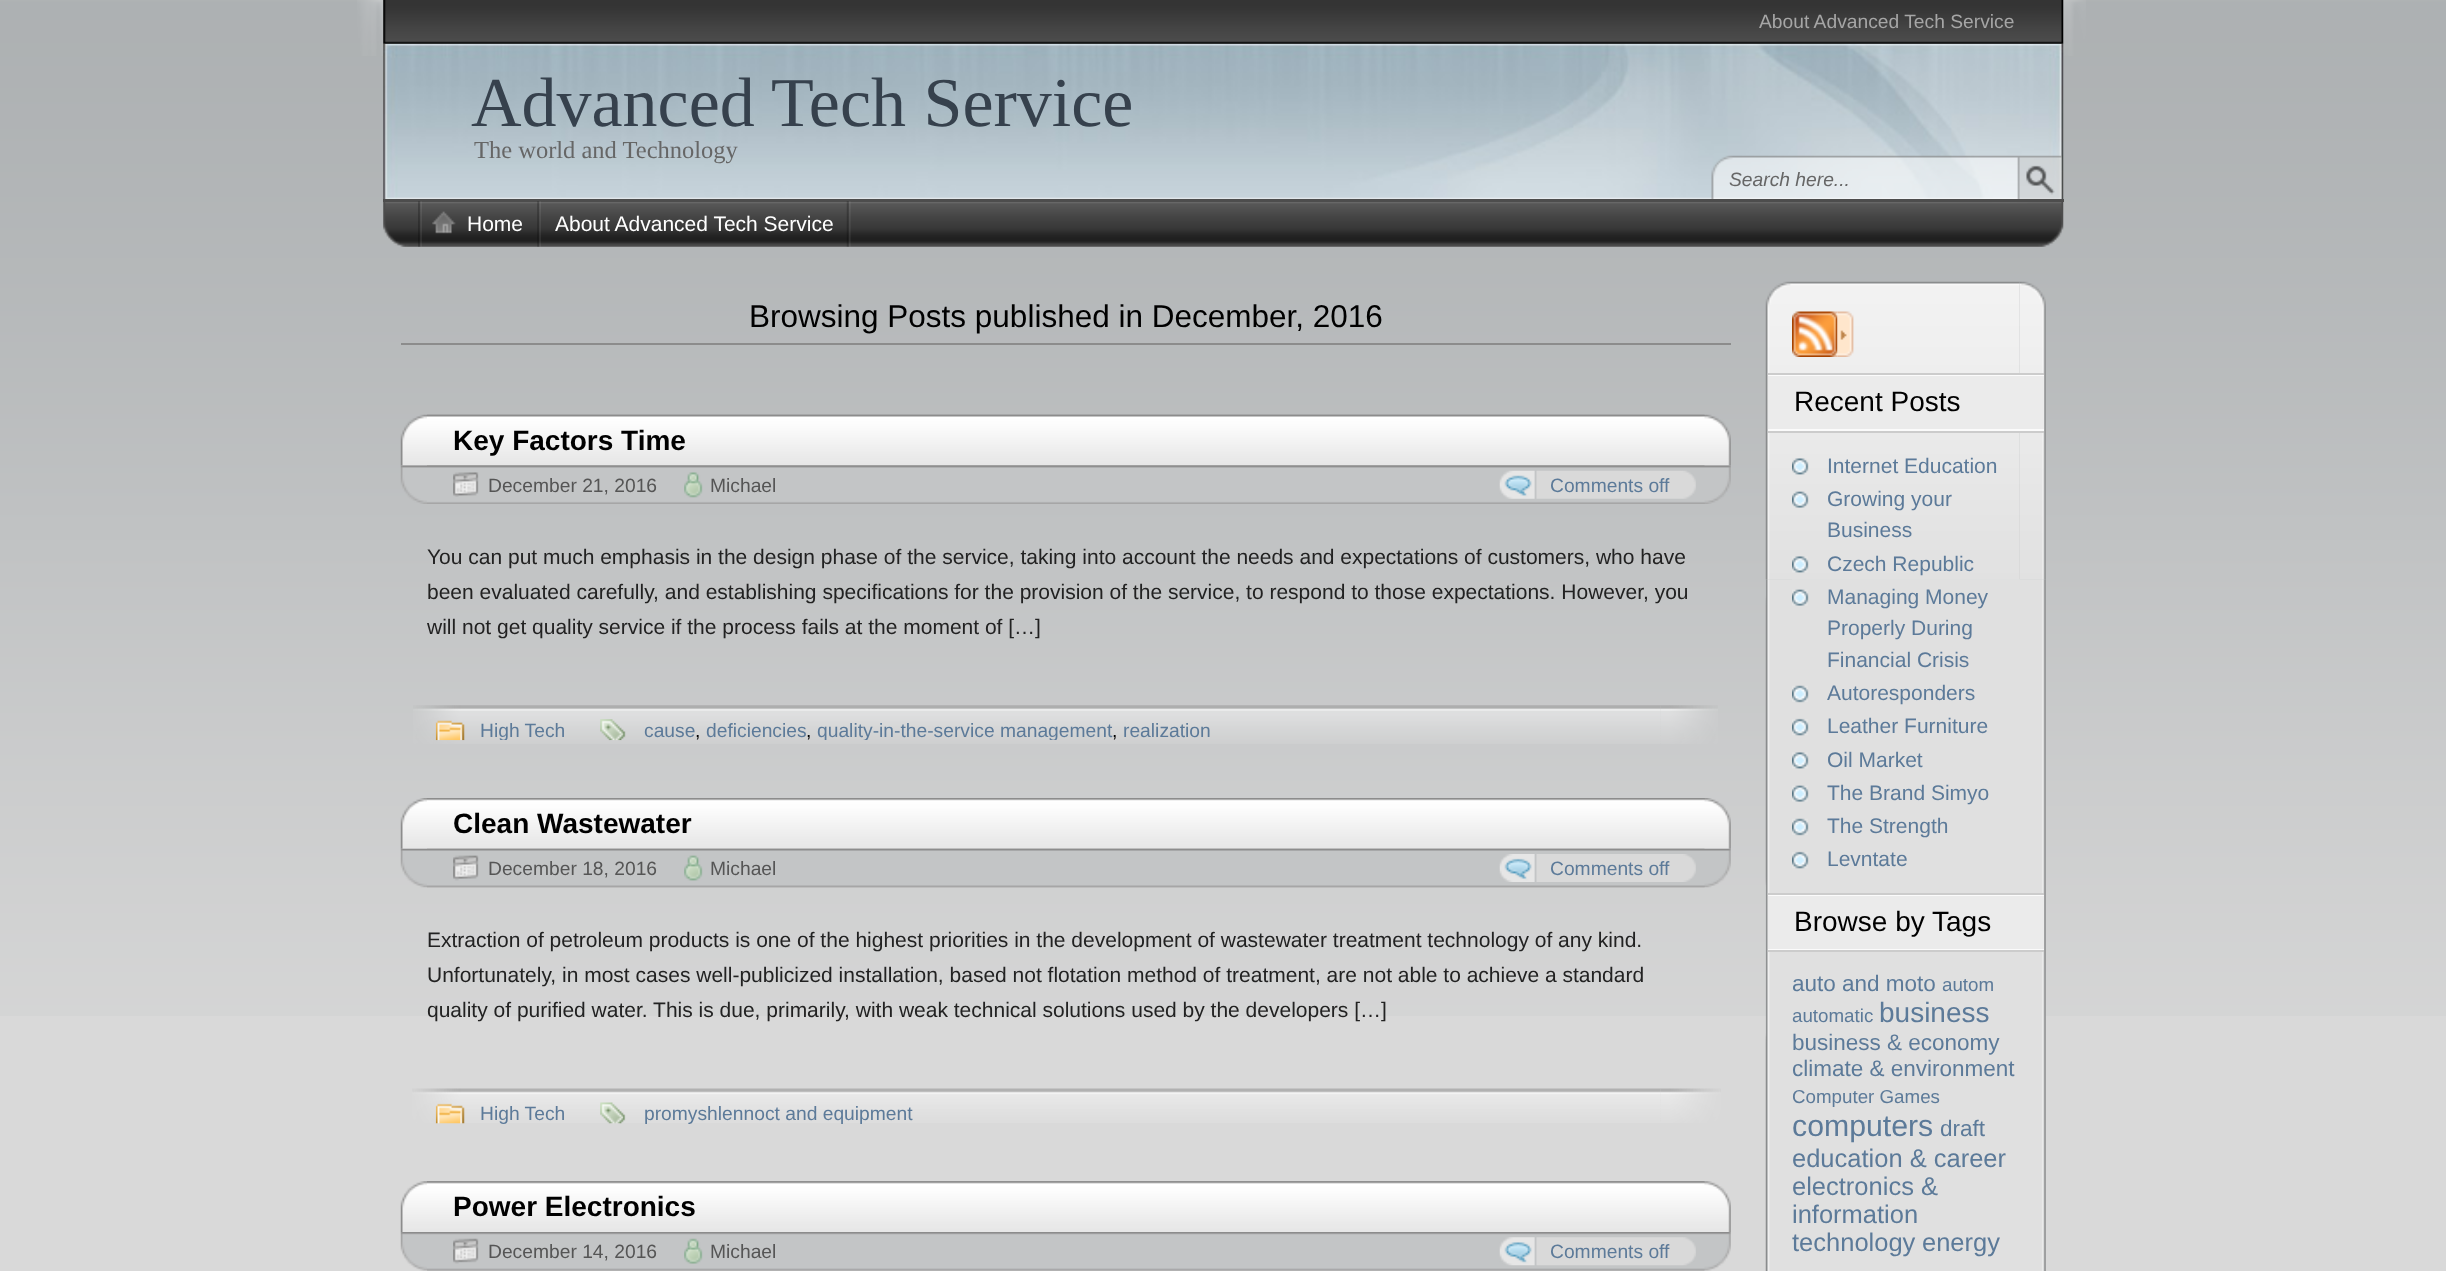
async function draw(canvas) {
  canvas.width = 2446;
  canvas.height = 1271;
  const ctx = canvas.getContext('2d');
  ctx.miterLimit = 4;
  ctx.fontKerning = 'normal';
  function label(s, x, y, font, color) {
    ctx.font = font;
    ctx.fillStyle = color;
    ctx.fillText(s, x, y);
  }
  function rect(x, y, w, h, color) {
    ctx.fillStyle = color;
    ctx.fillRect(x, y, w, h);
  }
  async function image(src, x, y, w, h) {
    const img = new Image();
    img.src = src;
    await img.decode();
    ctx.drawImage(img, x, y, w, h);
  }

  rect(0, 0, 2446, 1271, '#d9d9d9');
  await image('assets/img1.png', 0, 0, 2446, 1016);
  await image('assets/img2.png', 357, 0, 1729, 56);
  await image('assets/img4.png', 383, 43, 1681, 156);
  await image('assets/img3.png', 383, 0, 1681, 44);
  label('About Advanced Tech Service', 1759, 28, '19.25px Liberation Sans', '#a6a6a6');
  label('Advanced Tech Service', 471, 126, '70px Liberation Serif', '#36414d');
  label('The world and Technology', 474, 158, '24.5px Liberation Serif', '#666');
  await image('assets/img5.png', 1711, 155, 351, 44);
  label('Search here...', 1729, 186, 'italic 19.25px Liberation Sans', '#666');
  await image('assets/img6.png', 383, 202, 1681, 45);
  rect(383, 199, 1681, 3, '#4d4d4d');
  await image('assets/img7.png', 418, 201, 4, 46);
  await image('assets/img8.png', 537, 201, 4, 46);
  await image('assets/img9.png', 432, 211, 24, 23);
  label('Home', 467, 231, '21px Liberation Sans', '#fff');
  await image('assets/img10.png', 846, 201, 5, 46);
  label('About Advanced Tech Service', 555, 231, '21px Liberation Sans', '#fff');
  rect(401, 343, 1330, 2, '#8c8c8c');
  label('Browsing Posts published in December, 2016', 749, 327, '31.5px Liberation Sans', '#000');
  await image('assets/img11.png', 400, 414, 1305, 52);
  await image('assets/img12.png', 427, 414, 1304, 52);
  label('Key Factors Time', 453, 450, 'bold 28px Liberation Sans', '#000');
  await image('assets/img13.png', 400, 465, 1305, 39);
  await image('assets/img14.png', 427, 465, 1304, 39);
  await image('assets/img15.png', 453, 472, 26, 25);
  label('December 21, 2016', 488, 492, '19.25px Liberation Sans', '#555');
  await image('assets/img16.png', 684, 472, 19, 26);
  label('Michael', 710, 492, '19.25px Liberation Sans', '#555');
  await image('assets/img17.png', 1499, 470, 36, 29);
  await image('assets/img18.png', 1536, 470, 160, 29);
  label('Comments off', 1550, 492, '19.25px Liberation Sans', '#5c7a99');
  label('You can put much emphasis in the design phase of the service, taking into account the needs and expectations of customers, who have', 427, 564, '21px Liberation Sans', '#222');
  label('been evaluated carefully, and establishing specifications for the provision of the service, to respond to those expectations. However, you', 427, 599, '21px Liberation Sans', '#222');
  label('will not get quality service if the process fails at the moment of […]', 427, 634, '21px Liberation Sans', '#222');
  await image('assets/img19.png', 413, 705, 1248, 39);
  await image('assets/img20.png', 435, 720, 30, 21);
  ctx.save();
  ctx.beginPath();
  ctx.rect(436, 705, 997, 35);
  ctx.clip();
  label('High Tech', 480, 737, '19.25px Liberation Sans', '#5c7a99');
  ctx.restore();
  await image('assets/img21.png', 600, 719, 26, 22);
  label('cause', 644, 737, '19.25px Liberation Sans', '#5c7a99');
  label(',', 695, 737, '19.25px Liberation Sans', '#000');
  label('deficiencies', 706, 737, '19.25px Liberation Sans', '#5c7a99');
  label(',', 806, 737, '19.25px Liberation Sans', '#000');
  ctx.save();
  ctx.beginPath();
  ctx.rect(436, 705, 997, 35);
  ctx.clip();
  label('quality-in-the-service management', 817, 737, '19.25px Liberation Sans', '#5c7a99');
  ctx.restore();
  label(',', 1112, 737, '19.25px Liberation Sans', '#000');
  label('realization', 1123, 737, '19.25px Liberation Sans', '#5c7a99');
  await image('assets/img22.png', 1660, 705, 58, 39);
  await image('assets/img23.png', 400, 798, 1305, 51);
  await image('assets/img24.png', 427, 798, 1304, 51);
  label('Clean Wastewater', 453, 833, 'bold 28px Liberation Sans', '#000');
  await image('assets/img25.png', 400, 848, 1305, 40);
  await image('assets/img26.png', 427, 848, 1304, 40);
  await image('assets/img27.png', 453, 855, 26, 26);
  label('December 18, 2016', 488, 875, '19.25px Liberation Sans', '#555');
  await image('assets/img28.png', 684, 855, 19, 26);
  label('Michael', 710, 875, '19.25px Liberation Sans', '#555');
  await image('assets/img29.png', 1499, 854, 36, 28);
  await image('assets/img30.png', 1536, 854, 160, 28);
  label('Comments off', 1550, 875, '19.25px Liberation Sans', '#5c7a99');
  label('Extraction of petroleum products is one of the highest priorities in the development of wastewater treatment technology of any kind.', 427, 947, '21px Liberation Sans', '#222');
  label('Unfortunately, in most cases well-publicized installation, based not flotation method of treatment, are not able to achieve a standard', 427, 982, '21px Liberation Sans', '#222');
  label('quality of purified water. This is due, primarily, with weak technical solutions used by the developers […]', 427, 1017, '21px Liberation Sans', '#222');
  await image('assets/img31.png', 412, 1088, 1249, 35);
  await image('assets/img32.png', 435, 1103, 30, 21);
  label('High Tech', 480, 1120, '19.25px Liberation Sans', '#5c7a99');
  await image('assets/img33.png', 600, 1102, 26, 22);
  label('promyshlennoct and equipment', 644, 1120, '19.25px Liberation Sans', '#5c7a99');
  await image('assets/img34.png', 1660, 1088, 61, 35);
  await image('assets/img35.png', 400, 1181, 1305, 51);
  await image('assets/img36.png', 427, 1181, 1304, 51);
  label('Power Electronics', 453, 1216, 'bold 28px Liberation Sans', '#000');
  await image('assets/img37.png', 400, 1232, 1305, 39);
  await image('assets/img38.png', 427, 1232, 1304, 39);
  await image('assets/img39.png', 453, 1238, 26, 26);
  label('December 14, 2016', 488, 1258, '19.25px Liberation Sans', '#555');
  await image('assets/img40.png', 684, 1238, 19, 26);
  label('Michael', 710, 1258, '19.25px Liberation Sans', '#555');
  await image('assets/img41.png', 1499, 1237, 36, 29);
  await image('assets/img42.png', 1536, 1237, 160, 29);
  label('Comments off', 1550, 1258, '19.25px Liberation Sans', '#5c7a99');
  await image('assets/img43.png', 1765, 281, 255, 299);
  await image('assets/img45.png', 1765, 579, 255, 692);
  await image('assets/img46.png', 1792, 579, 254, 692);
  await image('assets/img44.png', 2019, 281, 27, 299);
  await image('assets/img47.png', 1792, 311, 46, 46);
  await image('assets/img48.png', 1837, 311, 17, 46);
  rect(1768, 375, 276, 56, '#fbfbfb');
  rect(1768, 373, 276, 2, '#ccc');
  rect(1768, 431, 276, 2, '#ccc');
  rect(1768, 376, 276, 53, '#ebebeb');
  label('Recent Posts', 1794, 411, '28px Liberation Sans', '#000');
  await image('assets/img49.png', 1792, 458, 17, 17);
  label('Internet Education', 1827, 473, '21px Liberation Sans', '#5c7a99');
  await image('assets/img50.png', 1792, 491, 17, 17);
  label('Growing your', 1827, 506, '21px Liberation Sans', '#5c7a99');
  label('Business', 1827, 537, '21px Liberation Sans', '#5c7a99');
  await image('assets/img51.png', 1792, 556, 17, 17);
  label('Czech Republic', 1827, 571, '21px Liberation Sans', '#5c7a99');
  await image('assets/img52.png', 1792, 589, 17, 17);
  label('Managing Money', 1827, 604, '21px Liberation Sans', '#5c7a99');
  label('Properly During', 1827, 635, '21px Liberation Sans', '#5c7a99');
  label('Financial Crisis', 1827, 667, '21px Liberation Sans', '#5c7a99');
  await image('assets/img53.png', 1792, 685, 17, 18);
  label('Autoresponders', 1827, 700, '21px Liberation Sans', '#5c7a99');
  await image('assets/img54.png', 1792, 718, 17, 18);
  label('Leather Furniture', 1827, 733, '21px Liberation Sans', '#5c7a99');
  await image('assets/img55.png', 1792, 752, 17, 17);
  label('Oil Market', 1827, 767, '21px Liberation Sans', '#5c7a99');
  await image('assets/img52.png', 1792, 785, 17, 17);
  label('The Brand Simyo', 1827, 800, '21px Liberation Sans', '#5c7a99');
  await image('assets/img53.png', 1792, 818, 17, 18);
  label('The Strength', 1827, 833, '21px Liberation Sans', '#5c7a99');
  await image('assets/img54.png', 1792, 851, 17, 18);
  label('Levntate', 1827, 866, '21px Liberation Sans', '#5c7a99');
  rect(1768, 895, 276, 55, '#fbfbfb');
  rect(1768, 893, 276, 2, '#ccc');
  rect(1768, 950, 276, 2, '#ccc');
  rect(1768, 896, 276, 53, '#ebebeb');
  label('Browse by Tags', 1794, 931, '28px Liberation Sans', '#000');
  label('auto and moto', 1792, 991, '22.5px Liberation Sans', '#5c7a99');
  label('autom', 1942, 991, '18.75px Liberation Sans', '#5c7a99');
  label('automatic', 1792, 1022, '18.75px Liberation Sans', '#5c7a99');
  label('business', 1879, 1022, '28px Liberation Sans', '#5c7a99');
  label('business & economy', 1792, 1050, '22.5px Liberation Sans', '#5c7a99');
  label('climate & environment', 1792, 1076, '22.5px Liberation Sans', '#5c7a99');
  label('Computer Games', 1792, 1103, '18.75px Liberation Sans', '#5c7a99');
  label('computers', 1792, 1136, '30.25px Liberation Sans', '#5c7a99');
  label('draft', 1940, 1136, '22.5px Liberation Sans', '#5c7a99');
  label('education & career', 1792, 1167, '25.5px Liberation Sans', '#5c7a99');
  label('electronics &', 1792, 1195, '25.5px Liberation Sans', '#5c7a99');
  label('information', 1792, 1223, '25.5px Liberation Sans', '#5c7a99');
  label('technology', 1792, 1251, '25.5px Liberation Sans', '#5c7a99');
  label('energy', 1922, 1251, '25.5px Liberation Sans', '#5c7a99');
}

draw(document.querySelector('canvas'));
